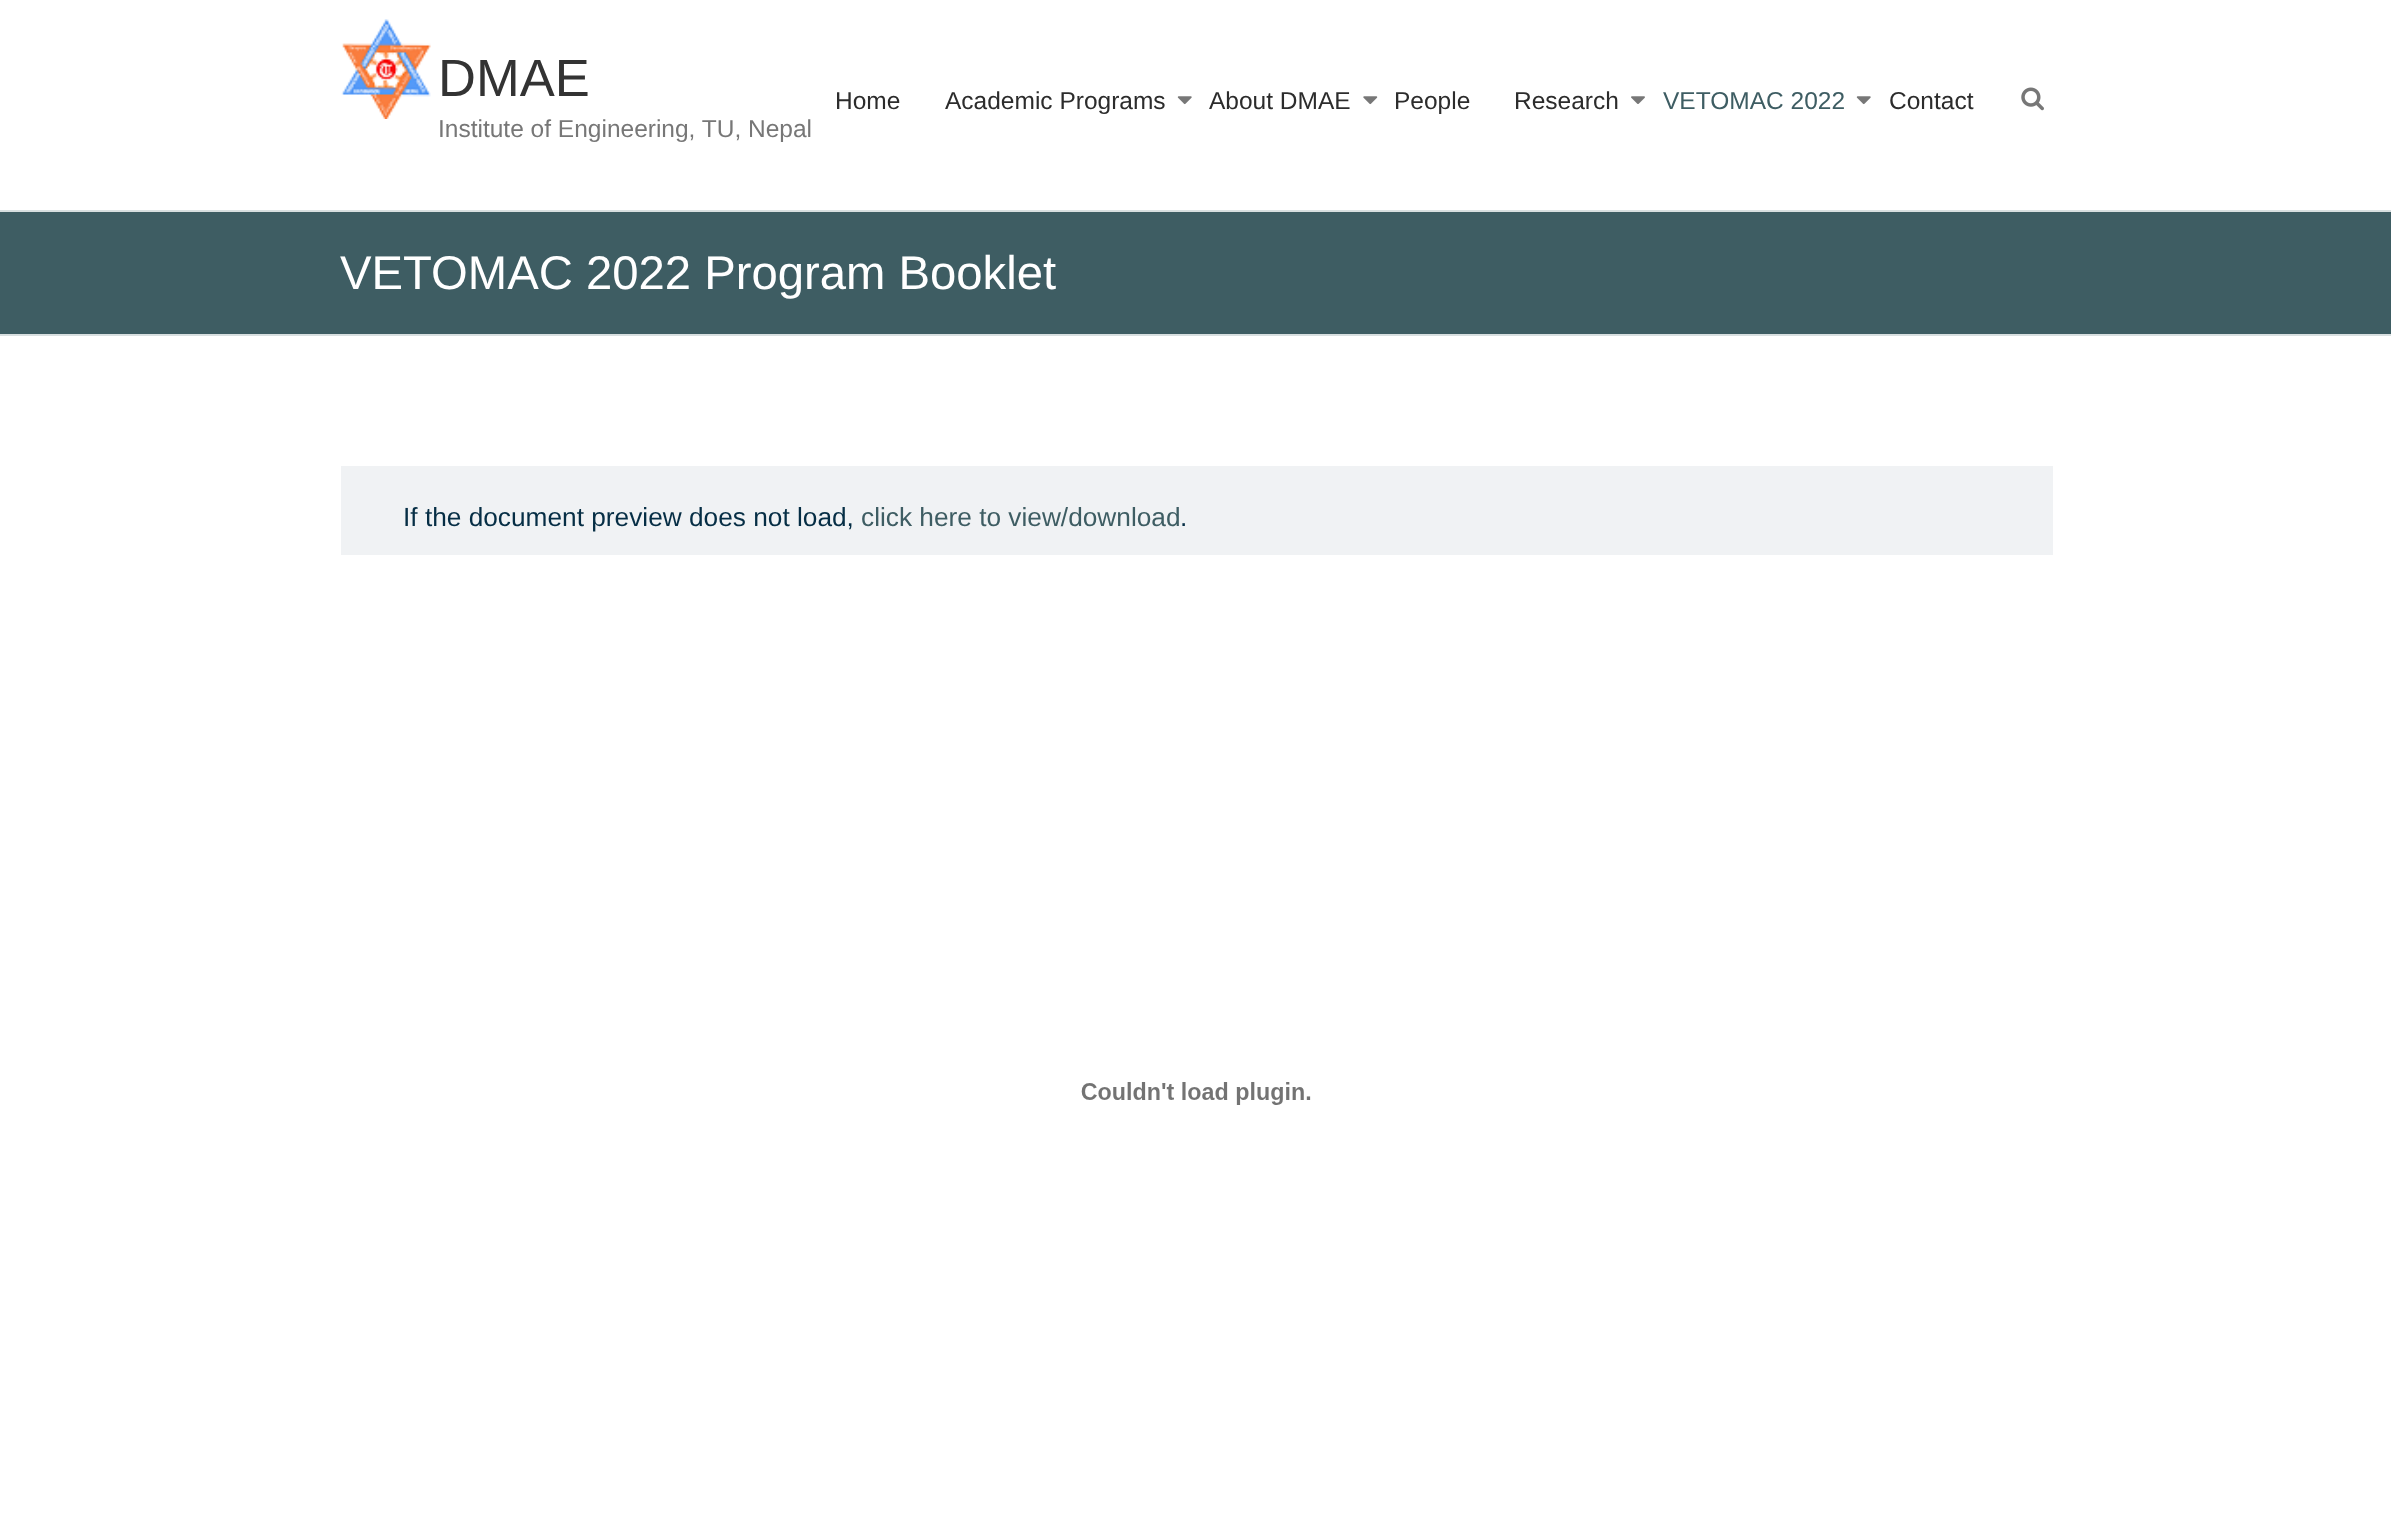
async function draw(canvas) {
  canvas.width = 2391;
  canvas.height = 1537;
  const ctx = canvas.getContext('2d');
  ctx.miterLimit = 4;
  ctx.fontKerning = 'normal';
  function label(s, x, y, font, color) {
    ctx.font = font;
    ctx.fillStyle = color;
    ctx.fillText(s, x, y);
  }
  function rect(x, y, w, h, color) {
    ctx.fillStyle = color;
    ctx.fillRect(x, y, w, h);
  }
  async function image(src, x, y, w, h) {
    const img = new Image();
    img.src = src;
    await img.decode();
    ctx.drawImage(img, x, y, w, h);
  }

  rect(0, 0, 2391, 1537, '#fff');
  await image('assets/img1.png', 341, 19, 90, 100);
  label('DMAE', 438, 96, '52.5px Liberation Sans', '#333');
  label('Institute of Engineering, TU, Nepal', 438, 137, '24.5px Liberation Sans', '#777');
  label('Home', 835, 109, '24.5px Liberation Sans', '#2c2c2c');
  label('Academic Programs', 945, 109, '24.5px Liberation Sans', '#2c2c2c');
  await image('assets/img2.png', 1177, 96, 15, 9);
  label('About DMAE', 1209, 109, '24.5px Liberation Sans', '#2c2c2c');
  await image('assets/img3.png', 1363, 96, 15, 9);
  label('People', 1394, 109, '24.5px Liberation Sans', '#2c2c2c');
  label('Research', 1514, 109, '24.5px Liberation Sans', '#2c2c2c');
  await image('assets/img4.png', 1631, 96, 14, 8);
  label('VETOMAC 2022', 1663, 109, '24.5px Liberation Sans', '#3e5d63');
  await image('assets/img2.png', 1856, 96, 15, 9);
  label('Contact', 1889, 109, '24.5px Liberation Sans', '#2c2c2c');
  await image('assets/img5.png', 2021, 87, 23, 24);
  rect(0, 212, 2391, 122, '#3e5d63');
  rect(0, 210, 2391, 2, '#d8dfe0');
  rect(0, 334, 2391, 2, '#d8dfe0');
  label('VETOMAC 2022 Program Booklet', 340, 289, '47.25px Liberation Sans', '#fff');
  rect(341, 466, 1712, 89, '#f0f2f4');
  label('If the document preview does not load,', 403, 526, '26.25px Liberation Sans', '#062e45');
  label('click here to view/download', 861, 526, '26.25px Liberation Sans', '#3e5d63');
  label('.', 1180, 526, '26.25px Liberation Sans', '#062e45');
  await image('assets/img6.png', 1081, 1082, 230, 23);
}

draw(document.querySelector('canvas'));
